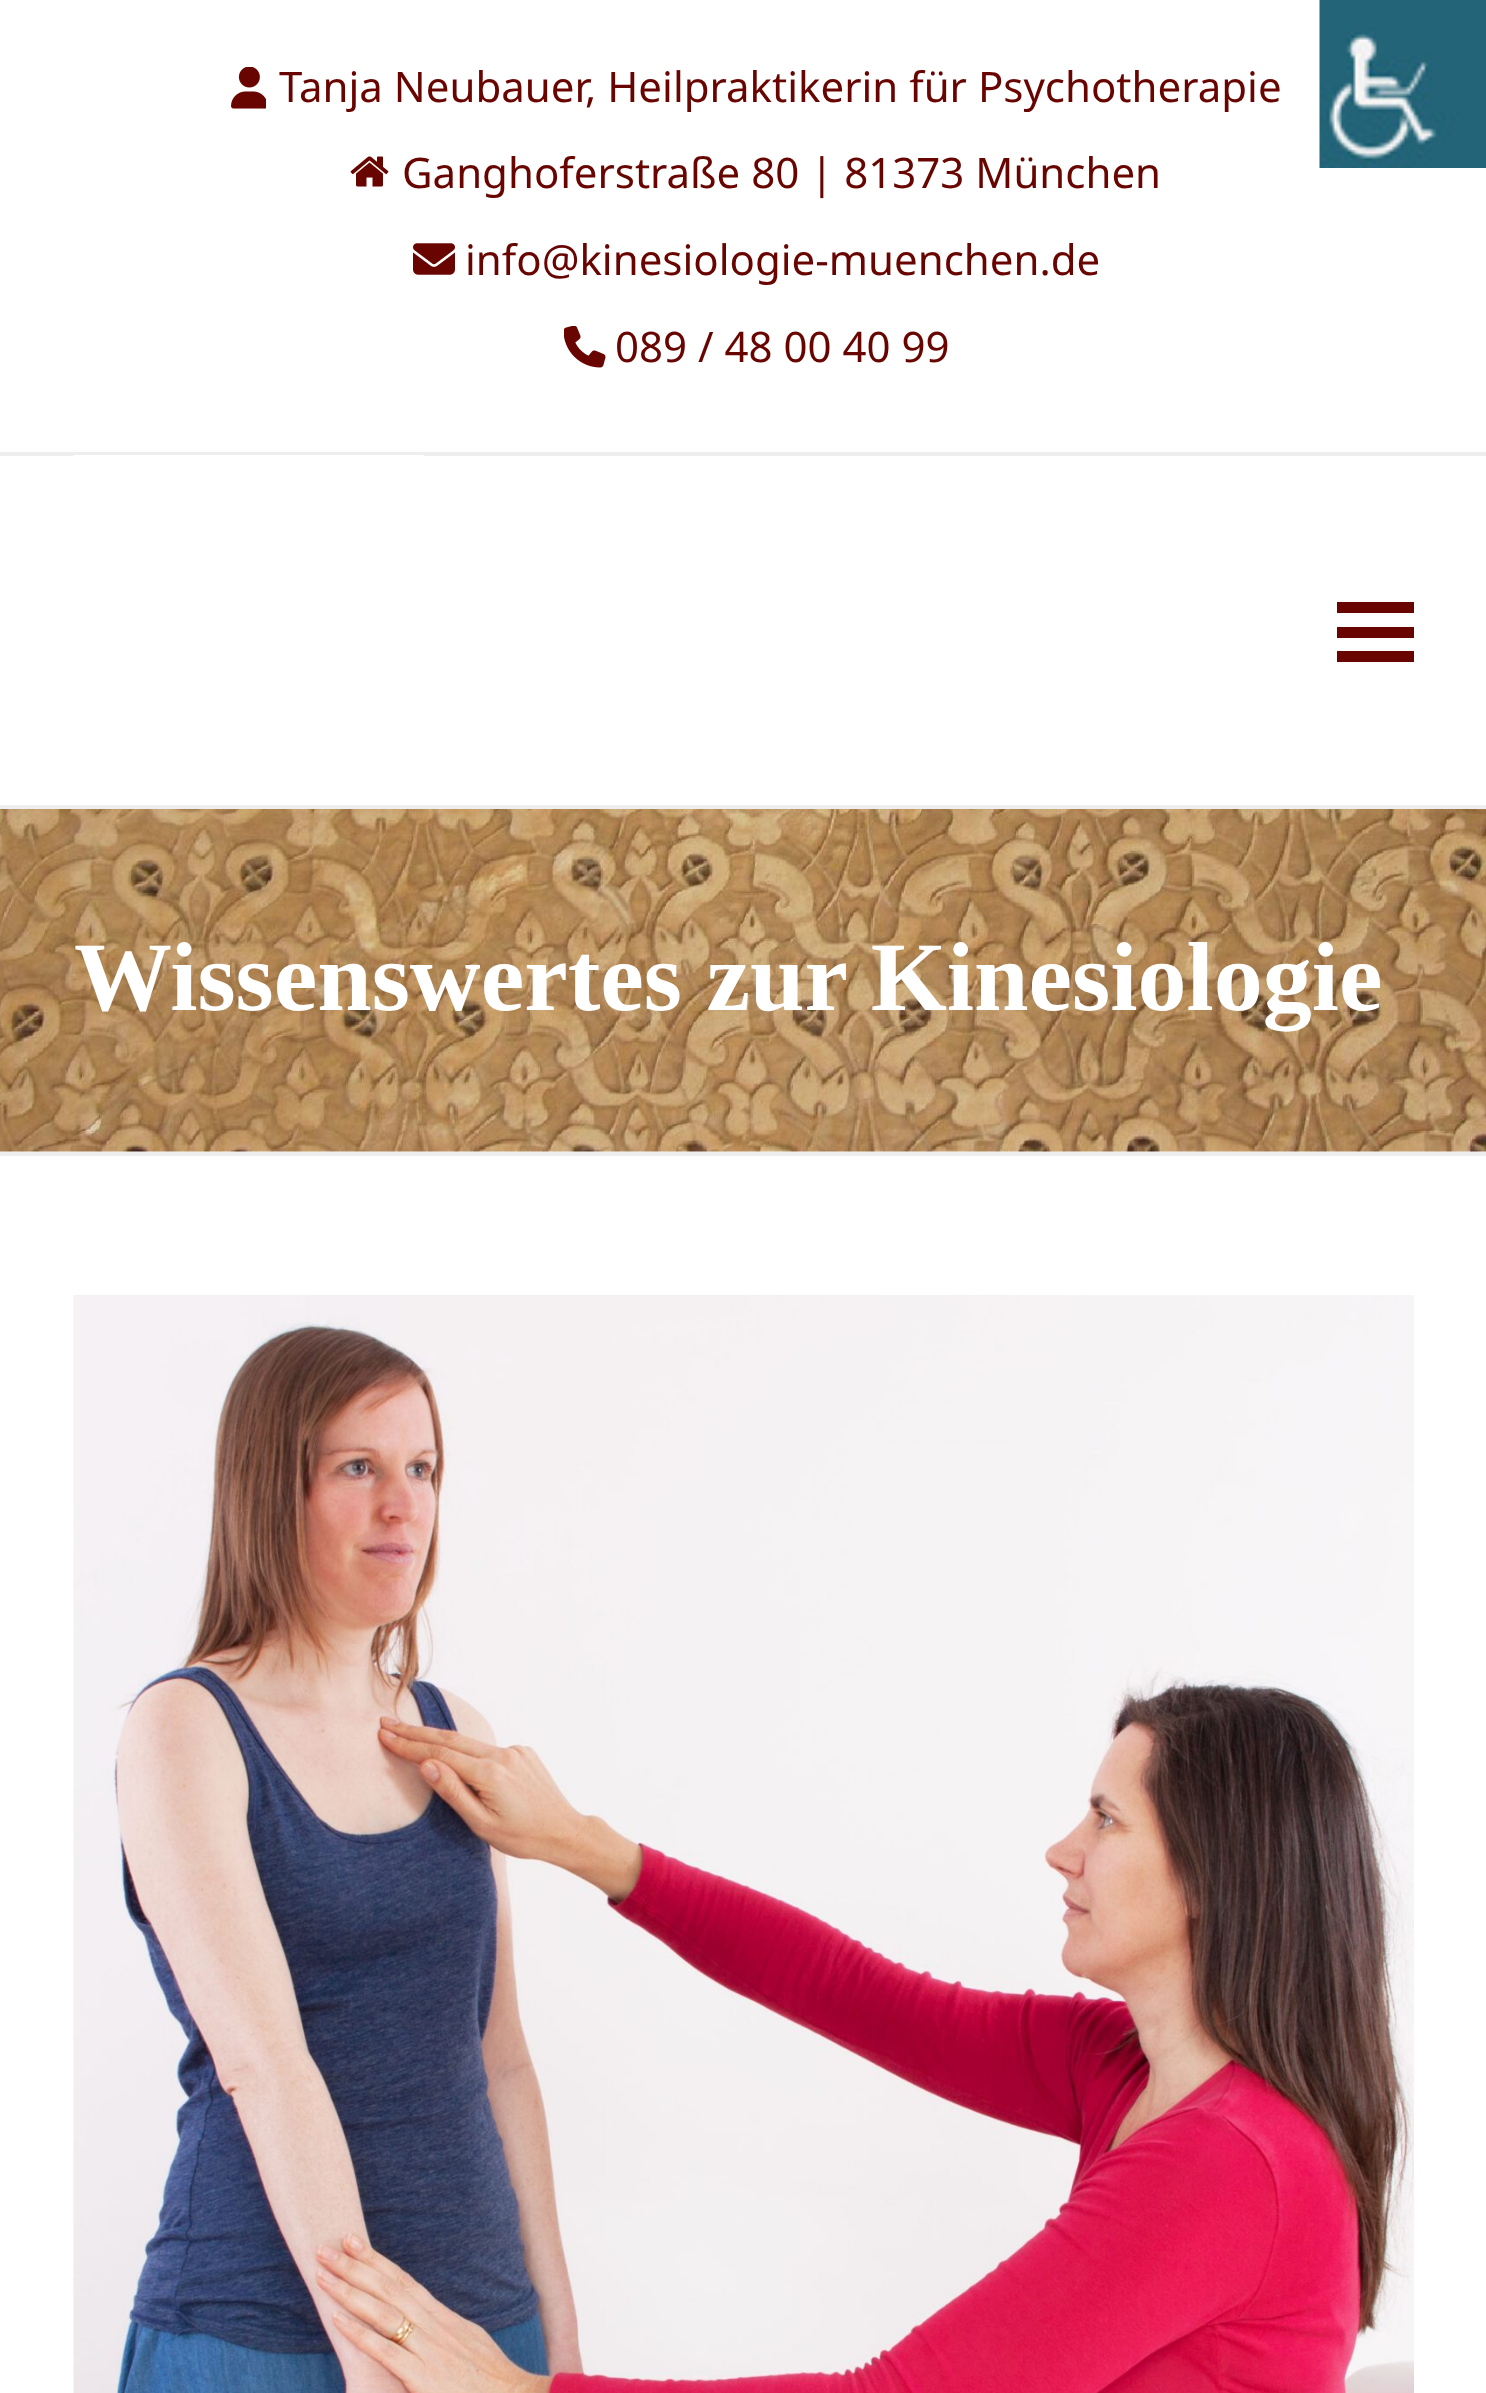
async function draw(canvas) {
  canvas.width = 1486;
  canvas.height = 2393;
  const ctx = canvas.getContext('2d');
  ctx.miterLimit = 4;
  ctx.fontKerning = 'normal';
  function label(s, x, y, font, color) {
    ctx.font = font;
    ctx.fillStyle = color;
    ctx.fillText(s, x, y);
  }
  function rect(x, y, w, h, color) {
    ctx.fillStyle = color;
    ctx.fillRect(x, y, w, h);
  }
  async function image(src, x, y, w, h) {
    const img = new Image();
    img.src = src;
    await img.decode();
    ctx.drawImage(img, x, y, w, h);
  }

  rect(0, 0, 1486, 2393, '#fff');
  rect(0, 452, 1486, 4, '#eee');
  await image('assets/img1.png', 231, 67, 35, 42);
  label('Tanja Neubauer, Heilpraktikerin für Psychotherapie', 279, 102, '42px Noto Sans', '#690500');
  await image('assets/img2.png', 350, 156, 39, 31);
  label('Ganghoferstraße 80 | 81373 München', 402, 188, '42px Noto Sans', '#690500');
  await image('assets/img3.png', 413, 243, 42, 32);
  label('info@kinesiologie-muenchen.de', 465, 275, '42px Noto Sans', '#690500');
  await image('assets/img4.png', 564, 326, 42, 42);
  label('089 / 48 00 40 99', 615, 362, '42px Noto Sans', '#690500');
  await image('assets/img5.png', 73, 455, 351, 1);
  rect(1337, 627, 77, 11, '#690500');
  rect(1337, 602, 77, 11, '#690500');
  rect(1337, 651, 77, 11, '#690500');
  rect(0, 1151, 1486, 1, '#f7f7f7');
  await image('assets/img6.png', 0, 809, 1486, 343);
  rect(0, 805, 1486, 4, '#eee');
  rect(0, 1152, 1486, 4, '#eee');
  label('Wissenswertes zur Kinesiologie', 74, 1010, 'bold 98px Liberation Serif', '#fff');
  await image('assets/img7.png', 73, 1295, 1341, 1098);
  await image('assets/img8.png', 1319, 0, 167, 168);
}

draw(document.querySelector('canvas'));
